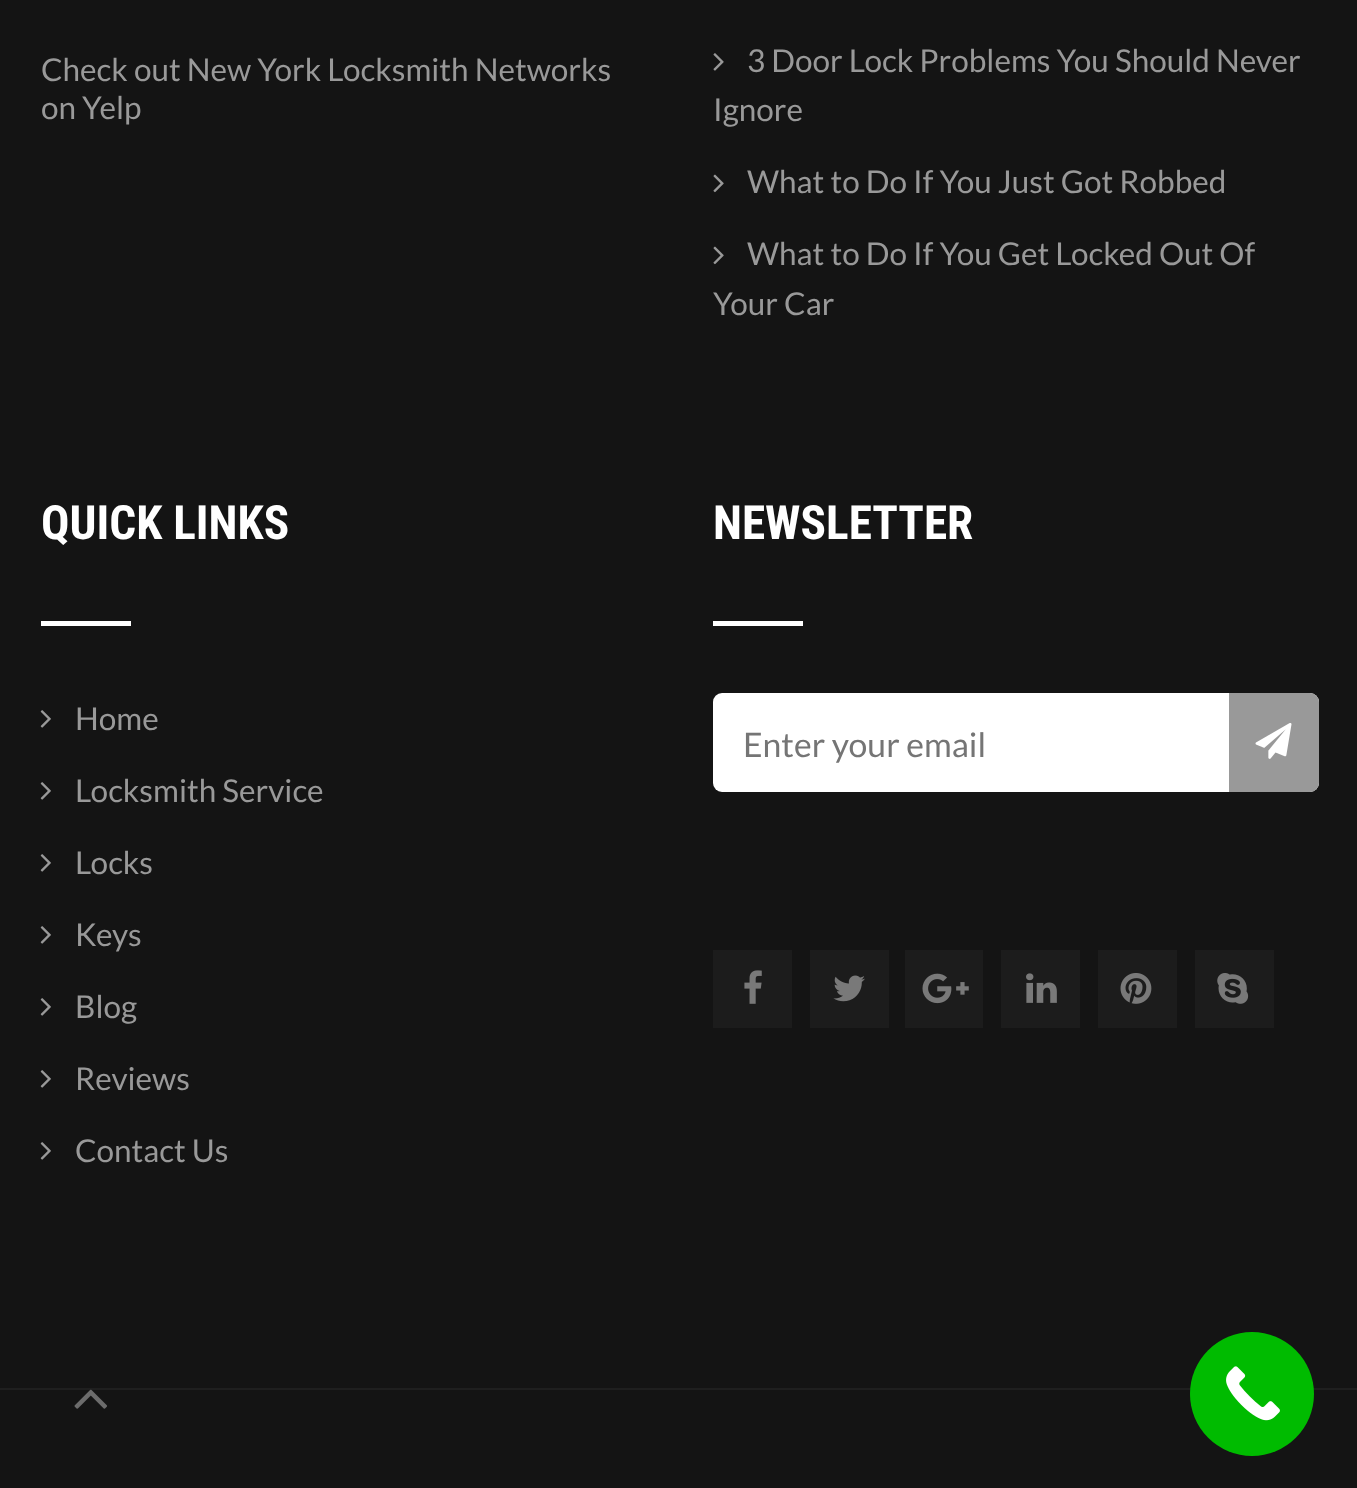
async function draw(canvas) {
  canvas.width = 1357;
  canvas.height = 1488;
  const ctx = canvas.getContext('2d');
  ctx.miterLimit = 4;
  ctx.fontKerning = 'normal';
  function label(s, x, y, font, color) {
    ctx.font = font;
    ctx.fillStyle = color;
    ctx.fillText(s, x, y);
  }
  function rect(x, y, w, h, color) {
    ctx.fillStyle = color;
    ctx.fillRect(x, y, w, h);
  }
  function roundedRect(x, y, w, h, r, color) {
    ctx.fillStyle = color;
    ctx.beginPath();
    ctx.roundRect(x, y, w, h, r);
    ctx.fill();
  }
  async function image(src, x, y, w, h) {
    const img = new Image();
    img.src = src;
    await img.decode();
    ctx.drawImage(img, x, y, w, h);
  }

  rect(0, 0, 1357, 1488, '#141414');
  label('Check out New York Locksmith Networks', 41, 81, '31.5px Lato', '#999');
  label('on Yelp', 41, 119, '31.5px Lato', '#999');
  await image('assets/img1.png', 713, 53, 11, 18);
  label('3 Door Lock Problems You Should Never', 747, 72, '31.5px Lato', '#999');
  label('Ignore', 713, 121, '31.5px Lato', '#999');
  await image('assets/img2.png', 713, 174, 11, 19);
  label('What to Do If You Just Got Robbed', 747, 193, '31.5px Lato', '#999');
  await image('assets/img2.png', 713, 246, 11, 19);
  label('What to Do If You Get Locked Out Of', 747, 265, '31.5px Lato', '#999');
  label('Your Car', 713, 315, '31.5px Lato', '#999');
  label('QUICK LINKS', 41, 539, 'bold 47.25px Roboto Condensed', '#fff');
  rect(41, 621, 90, 5, '#fff');
  await image('assets/img3.png', 40, 710, 11, 18);
  label('Home', 75, 730, '31.5px Lato', '#999');
  await image('assets/img3.png', 40, 782, 11, 18);
  label('Locksmith Service', 75, 802, '31.5px Lato', '#999');
  await image('assets/img3.png', 40, 854, 11, 18);
  label('Locks', 75, 874, '31.5px Lato', '#999');
  await image('assets/img3.png', 40, 926, 11, 18);
  label('Keys', 75, 946, '31.5px Lato', '#999');
  await image('assets/img3.png', 40, 998, 11, 18);
  label('Blog', 75, 1018, '31.5px Lato', '#999');
  await image('assets/img3.png', 40, 1070, 11, 18);
  label('Reviews', 75, 1090, '31.5px Lato', '#999');
  await image('assets/img3.png', 40, 1142, 11, 18);
  label('Contact Us', 75, 1162, '31.5px Lato', '#999');
  label('NEWSLETTER', 713, 539, 'bold 47.25px Roboto Condensed', '#fff');
  rect(713, 621, 90, 5, '#fff');
  roundedRect(713, 693, 606, 99, 9, '#fff');
  label('Enter your email', 743, 757, '33.75px Lato', '#757575');
  ctx.fillStyle = '#999';
  ctx.beginPath();
  ctx.roundRect(1229, 693, 90, 99, [0, 9, 9, 0]);
  ctx.fill();
  await image('assets/img4.png', 1255, 723, 37, 36);
  rect(713, 950, 79, 78, '#1c1c1c');
  await image('assets/img5.png', 744, 970, 18, 34);
  rect(810, 950, 79, 78, '#1c1c1c');
  await image('assets/img6.png', 833, 975, 32, 27);
  rect(905, 950, 78, 78, '#1c1c1c');
  await image('assets/img7.png', 922, 973, 47, 31);
  rect(1001, 950, 79, 78, '#1c1c1c');
  await image('assets/img8.png', 1026, 973, 31, 30);
  rect(1098, 950, 79, 78, '#1c1c1c');
  await image('assets/img9.png', 1120, 973, 32, 31);
  rect(1195, 950, 79, 78, '#1c1c1c');
  await image('assets/img10.png', 1217, 973, 32, 31);
  rect(0, 1388, 1357, 2, '#1f1f1f');
  await image('assets/img11.png', 74, 1389, 33, 20);
  ctx.fillStyle = '#0b0';
  ctx.beginPath();
  ctx.arc(1252, 1394, 62, 0, 2 * Math.PI);
  ctx.fill();
  await image('assets/img12.png', 1226, 1366, 54, 55);
}

draw(document.querySelector('canvas'));
